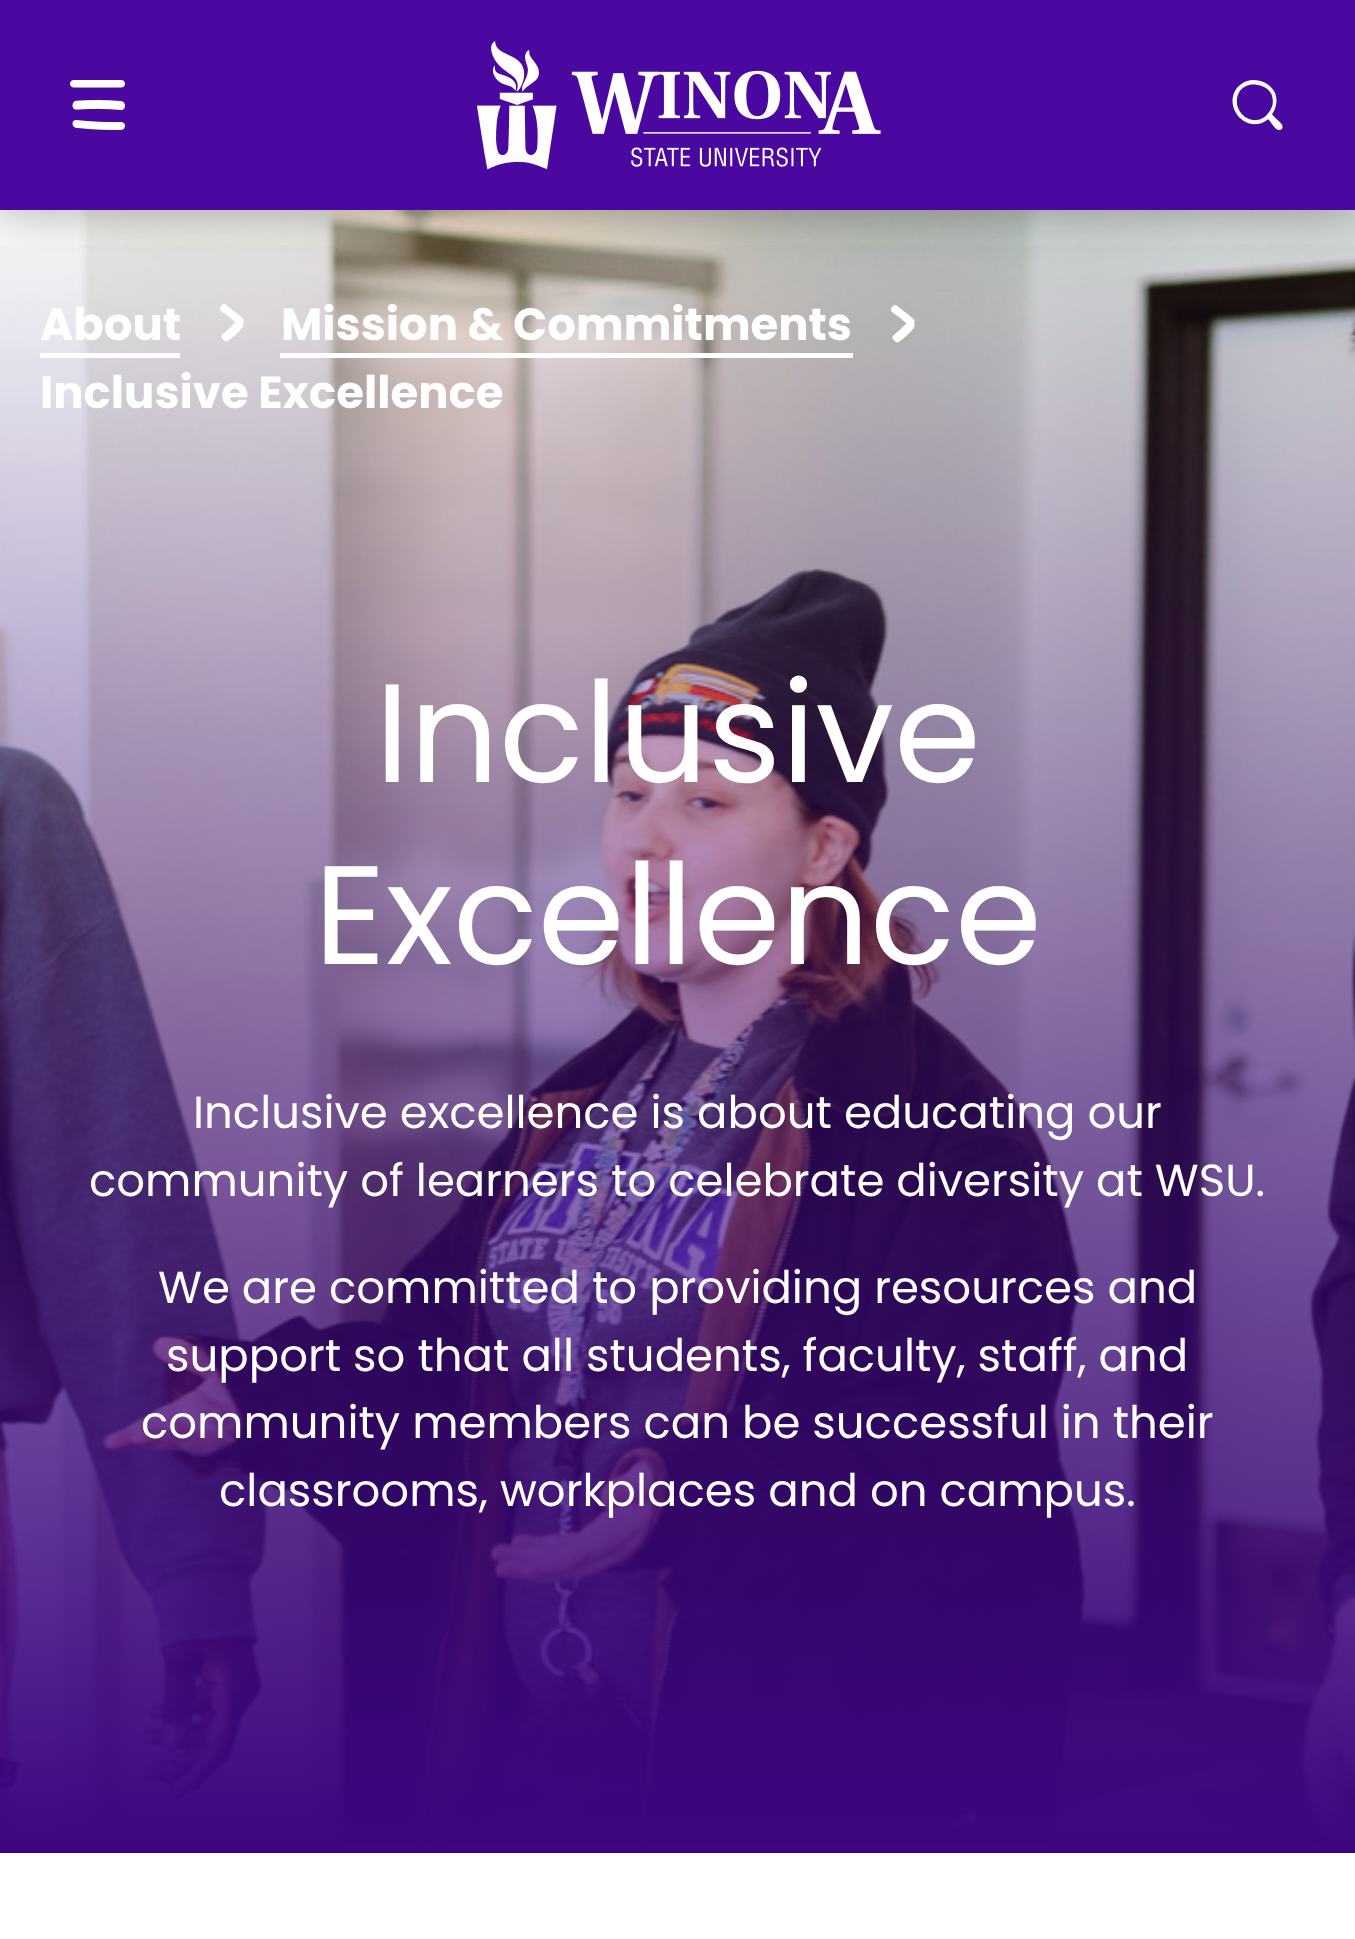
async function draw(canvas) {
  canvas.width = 1355;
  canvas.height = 1939;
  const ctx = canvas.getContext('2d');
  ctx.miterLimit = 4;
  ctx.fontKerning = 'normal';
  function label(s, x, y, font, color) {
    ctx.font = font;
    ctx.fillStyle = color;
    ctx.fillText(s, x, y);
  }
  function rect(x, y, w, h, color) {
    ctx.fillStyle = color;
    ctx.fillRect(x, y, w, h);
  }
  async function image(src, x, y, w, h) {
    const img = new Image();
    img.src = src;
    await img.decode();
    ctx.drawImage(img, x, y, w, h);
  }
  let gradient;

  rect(0, 0, 1355, 1939, '#fff');
  await image('assets/img4.png', 0, 210, 1355, 1634);
  gradient = ctx.createLinearGradient(677, 210, 678, 1853);
  gradient.addColorStop(0, '#3c068000');
  gradient.addColorStop(1, '#3c0680');
  ctx.fillStyle = gradient;
  ctx.fillRect(0, 245, 1355, 1608);
  ctx.fillStyle = '#0000004d';
  ctx.filter = 'blur(25px)';
  ctx.beginPath();
  ctx.rect(0, 0, 1355, 210);
  ctx.fill();
  ctx.filter = 'none';
  rect(0, 0, 1355, 210, '#4b08a1');
  await image('assets/img1.png', 70, 80, 55, 50);
  await image('assets/img2.png', 477, 41, 404, 129);
  await image('assets/img3.png', 1232, 80, 51, 50);
  label('About', 40, 340, 'bold 45px Poppins', '#fff');
  rect(40, 353, 140, 5, '#fff');
  await image('assets/img5.png', 220, 304, 24, 38);
  label('Mission & Commitments', 281, 340, 'bold 45px Poppins', '#fff');
  rect(280, 353, 573, 5, '#fff');
  await image('assets/img6.png', 891, 305, 24, 38);
  label('Inclusive Excellence', 40, 408, 'bold 45px Poppins', '#fff');
  label('Inclusive', 375, 782, '140px Poppins', '#fff');
  label('Excellence', 314, 964, '140px Poppins', '#fff');
  label('Inclusive excellence is about educating our', 193, 1128, '45px Poppins', '#fff');
  label('community of learners to celebrate diversity at WSU.', 89, 1196, '45px Poppins', '#fff');
  label('We are committed to providing resources and', 158, 1303, '45px Poppins', '#fff');
  label('support so that all students, faculty, staff, and', 166, 1371, '45px Poppins', '#fff');
  label('community members can be successful in their', 141, 1438, '45px Poppins', '#fff');
  label('classrooms, workplaces and on campus.', 219, 1506, '45px Poppins', '#fff');
}

draw(document.querySelector('canvas'));
